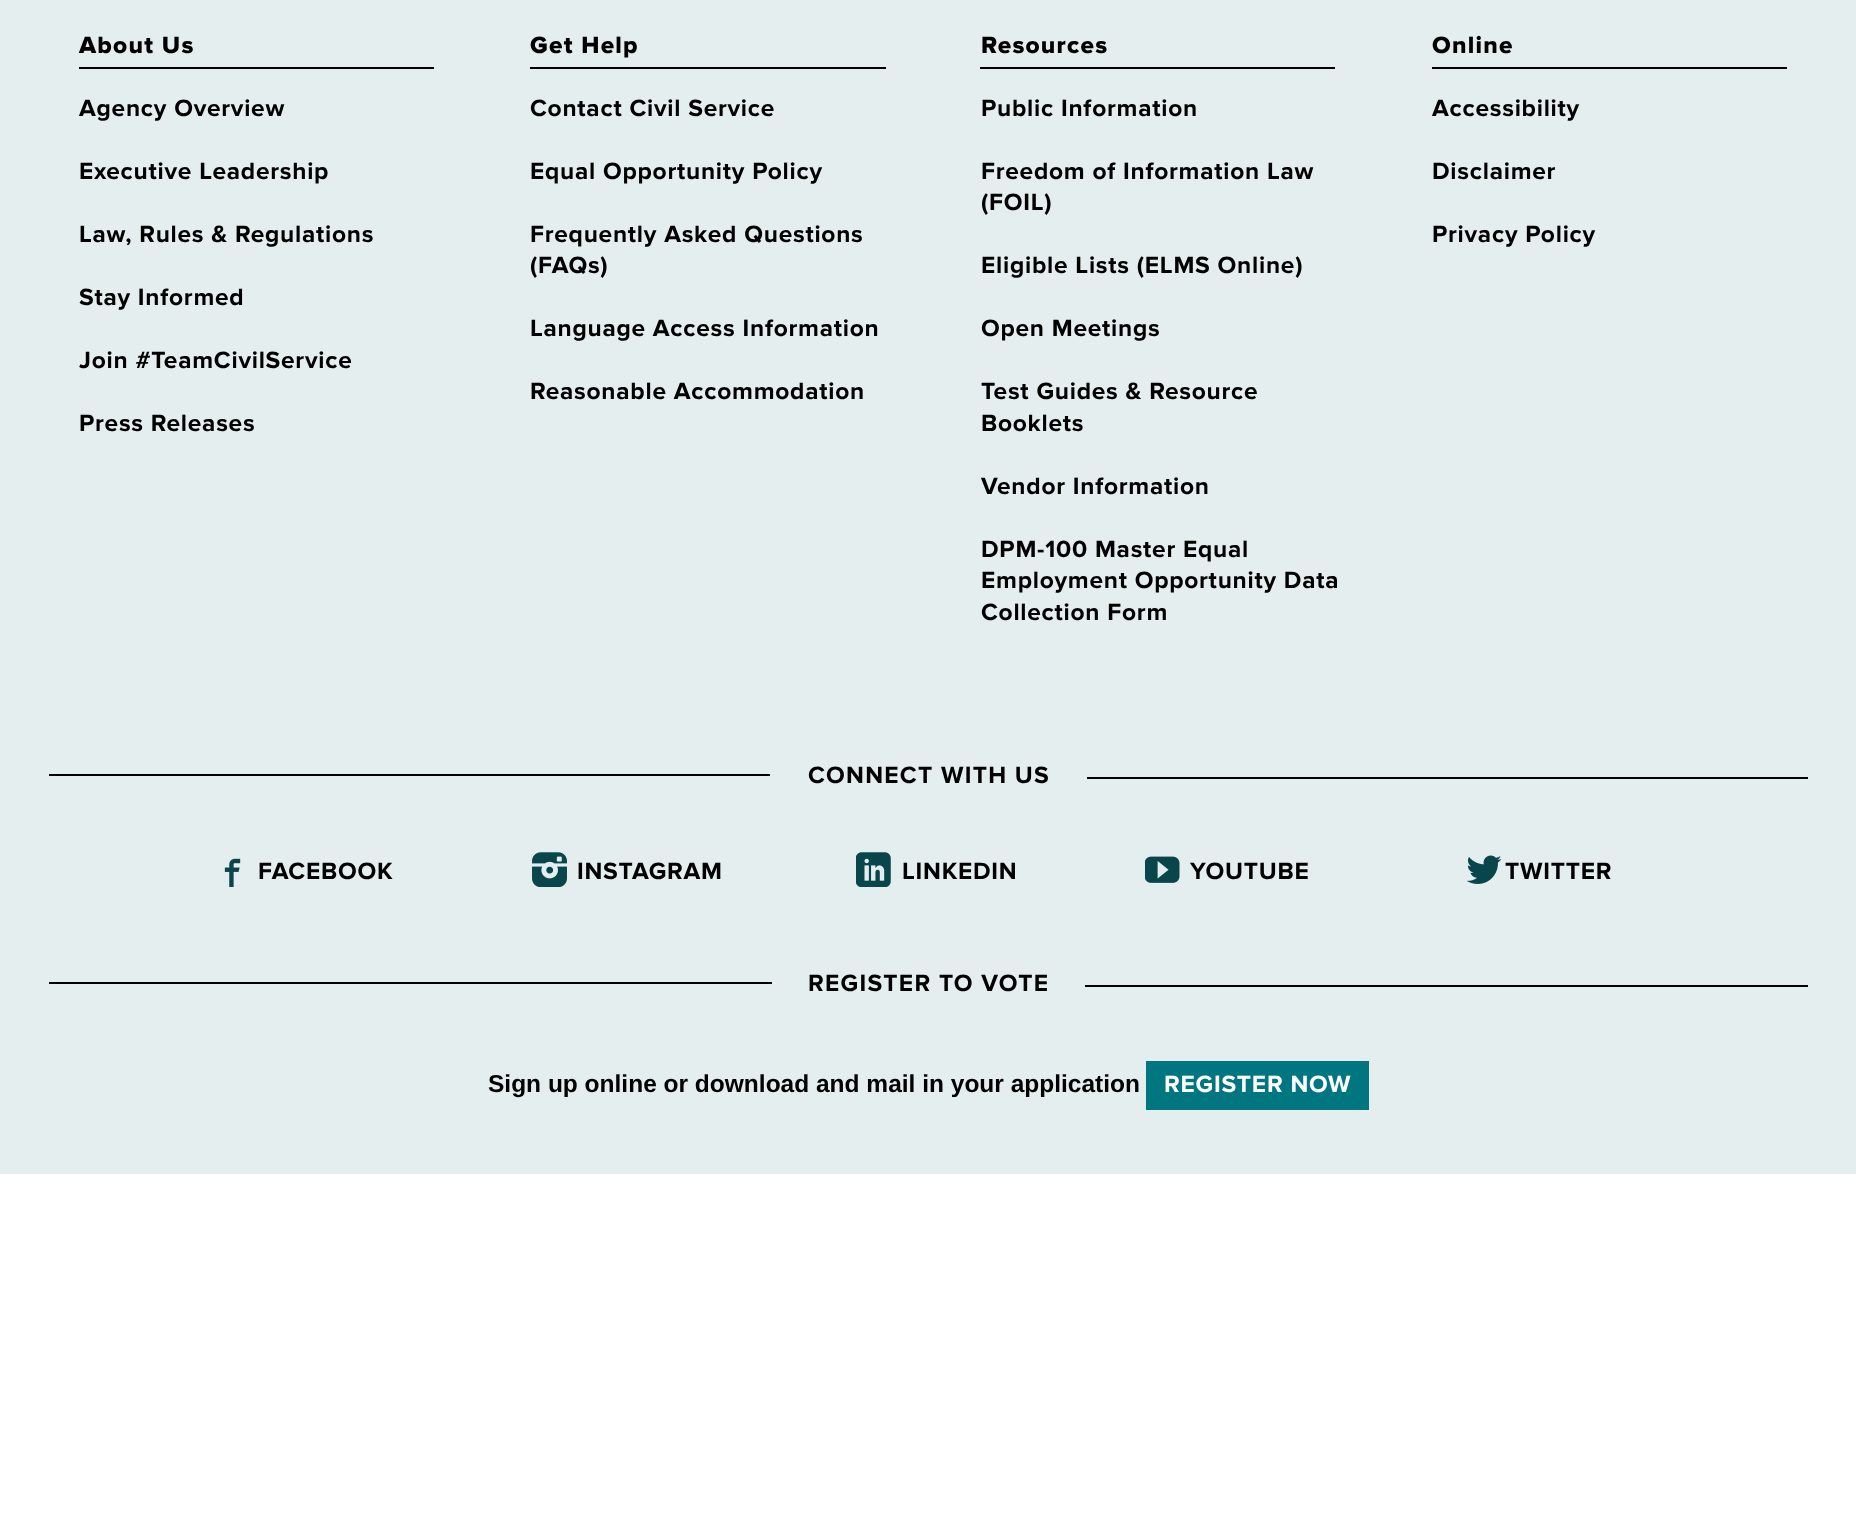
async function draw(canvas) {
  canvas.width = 1856;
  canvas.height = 1534;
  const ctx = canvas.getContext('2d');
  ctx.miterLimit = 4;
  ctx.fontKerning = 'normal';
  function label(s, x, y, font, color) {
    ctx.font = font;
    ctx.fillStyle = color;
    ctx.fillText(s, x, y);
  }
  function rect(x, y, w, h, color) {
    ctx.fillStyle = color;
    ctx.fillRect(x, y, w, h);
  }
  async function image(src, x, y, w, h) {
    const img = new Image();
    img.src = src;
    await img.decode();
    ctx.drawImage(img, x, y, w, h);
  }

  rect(0, 0, 1856, 1534, '#fff');
  rect(0, 0, 1856, 1174, '#e5eeee');
  ctx.letterSpacing = '1.25px';
  label('About Us', 79, 53, '800 24.5px Proxima Nova', '#000');
  rect(79, 67, 355, 2, '#000');
  ctx.letterSpacing = '0.75px';
  label('Agency Overview', 79, 116, 'bold 24.5px Proxima Nova', '#000');
  label('Executive Leadership', 79, 179, 'bold 24.5px Proxima Nova', '#000');
  label('Law, Rules & Regulations', 79, 242, 'bold 24.5px Proxima Nova', '#000');
  label('Stay Informed', 79, 305, 'bold 24.5px Proxima Nova', '#000');
  label('Join #TeamCivilService', 79, 368, 'bold 24.5px Proxima Nova', '#000');
  label('Press Releases', 79, 431, 'bold 24.5px Proxima Nova', '#000');
  ctx.letterSpacing = '1.25px';
  label('Get Help', 530, 53, '800 24.5px Proxima Nova', '#000');
  rect(530, 67, 356, 2, '#000');
  ctx.letterSpacing = '0.75px';
  label('Contact Civil Service', 530, 116, 'bold 24.5px Proxima Nova', '#000');
  label('Equal Opportunity Policy', 530, 179, 'bold 24.5px Proxima Nova', '#000');
  label('Frequently Asked Questions', 530, 242, 'bold 24.5px Proxima Nova', '#000');
  label('(FAQs)', 530, 273, 'bold 24.5px Proxima Nova', '#000');
  label('Language Access Information', 530, 336, 'bold 24.5px Proxima Nova', '#000');
  label('Reasonable Accommodation', 530, 399, 'bold 24.5px Proxima Nova', '#000');
  ctx.letterSpacing = '1.25px';
  label('Resources', 981, 53, '800 24.5px Proxima Nova', '#000');
  rect(980, 67, 355, 2, '#000');
  ctx.letterSpacing = '0.75px';
  label('Public Information', 981, 116, 'bold 24.5px Proxima Nova', '#000');
  label('Freedom of Information Law', 981, 179, 'bold 24.5px Proxima Nova', '#000');
  label('(FOIL)', 981, 210, 'bold 24.5px Proxima Nova', '#000');
  label('Eligible Lists (ELMS Online)', 981, 273, 'bold 24.5px Proxima Nova', '#000');
  label('Open Meetings', 981, 336, 'bold 24.5px Proxima Nova', '#000');
  label('Test Guides & Resource', 981, 399, 'bold 24.5px Proxima Nova', '#000');
  label('Booklets', 981, 431, 'bold 24.5px Proxima Nova', '#000');
  label('Vendor Information', 981, 494, 'bold 24.5px Proxima Nova', '#000');
  label('DPM-100 Master Equal', 981, 557, 'bold 24.5px Proxima Nova', '#000');
  label('Employment Opportunity Data', 981, 588, 'bold 24.5px Proxima Nova', '#000');
  label('Collection Form', 981, 620, 'bold 24.5px Proxima Nova', '#000');
  ctx.letterSpacing = '1.25px';
  label('Online', 1432, 53, '800 24.5px Proxima Nova', '#000');
  rect(1432, 67, 355, 2, '#000');
  ctx.letterSpacing = '0.75px';
  label('Accessibility', 1432, 116, 'bold 24.5px Proxima Nova', '#000');
  label('Disclaimer', 1432, 179, 'bold 24.5px Proxima Nova', '#000');
  label('Privacy Policy', 1432, 242, 'bold 24.5px Proxima Nova', '#000');
  rect(49, 774, 721, 2, '#000');
  ctx.letterSpacing = '1.25px';
  label('CONNECT WITH US', 808, 783, 'bold 24.5px Proxima Nova', '#000');
  rect(1087, 777, 721, 2, '#000');
  await image('assets/img1.png', 224, 858, 17, 29);
  ctx.letterSpacing = '0.75px';
  label('FACEBOOK', 258, 879, 'bold 24.5px Proxima Nova', '#000');
  await image('assets/img2.png', 532, 852, 35, 35);
  label('INSTAGRAM', 577, 879, 'bold 24.5px Proxima Nova', '#000');
  await image('assets/img3.png', 856, 852, 35, 35);
  label('LINKEDIN', 902, 879, 'bold 24.5px Proxima Nova', '#000');
  await image('assets/img4.png', 1145, 856, 35, 27);
  label('YOUTUBE', 1190, 879, 'bold 24.5px Proxima Nova', '#000');
  await image('assets/img5.png', 1467, 855, 35, 29);
  label('TWITTER', 1505, 879, 'bold 24.5px Proxima Nova', '#000');
  rect(49, 982, 723, 2, '#000');
  ctx.letterSpacing = '1.25px';
  label('REGISTER TO VOTE', 808, 991, 'bold 24.5px Proxima Nova', '#000');
  rect(1085, 985, 723, 2, '#000');
  ctx.letterSpacing = '0px';
  label('Sign up online or download and mail in your application', 488, 1092, 'bold 24.5px Liberation Sans', '#000');
  rect(1146, 1061, 223, 49, '#007681');
  ctx.letterSpacing = '0.75px';
  label('REGISTER NOW', 1164, 1092, 'bold 24.5px Proxima Nova', '#fff');
}

draw(document.querySelector('canvas'));
